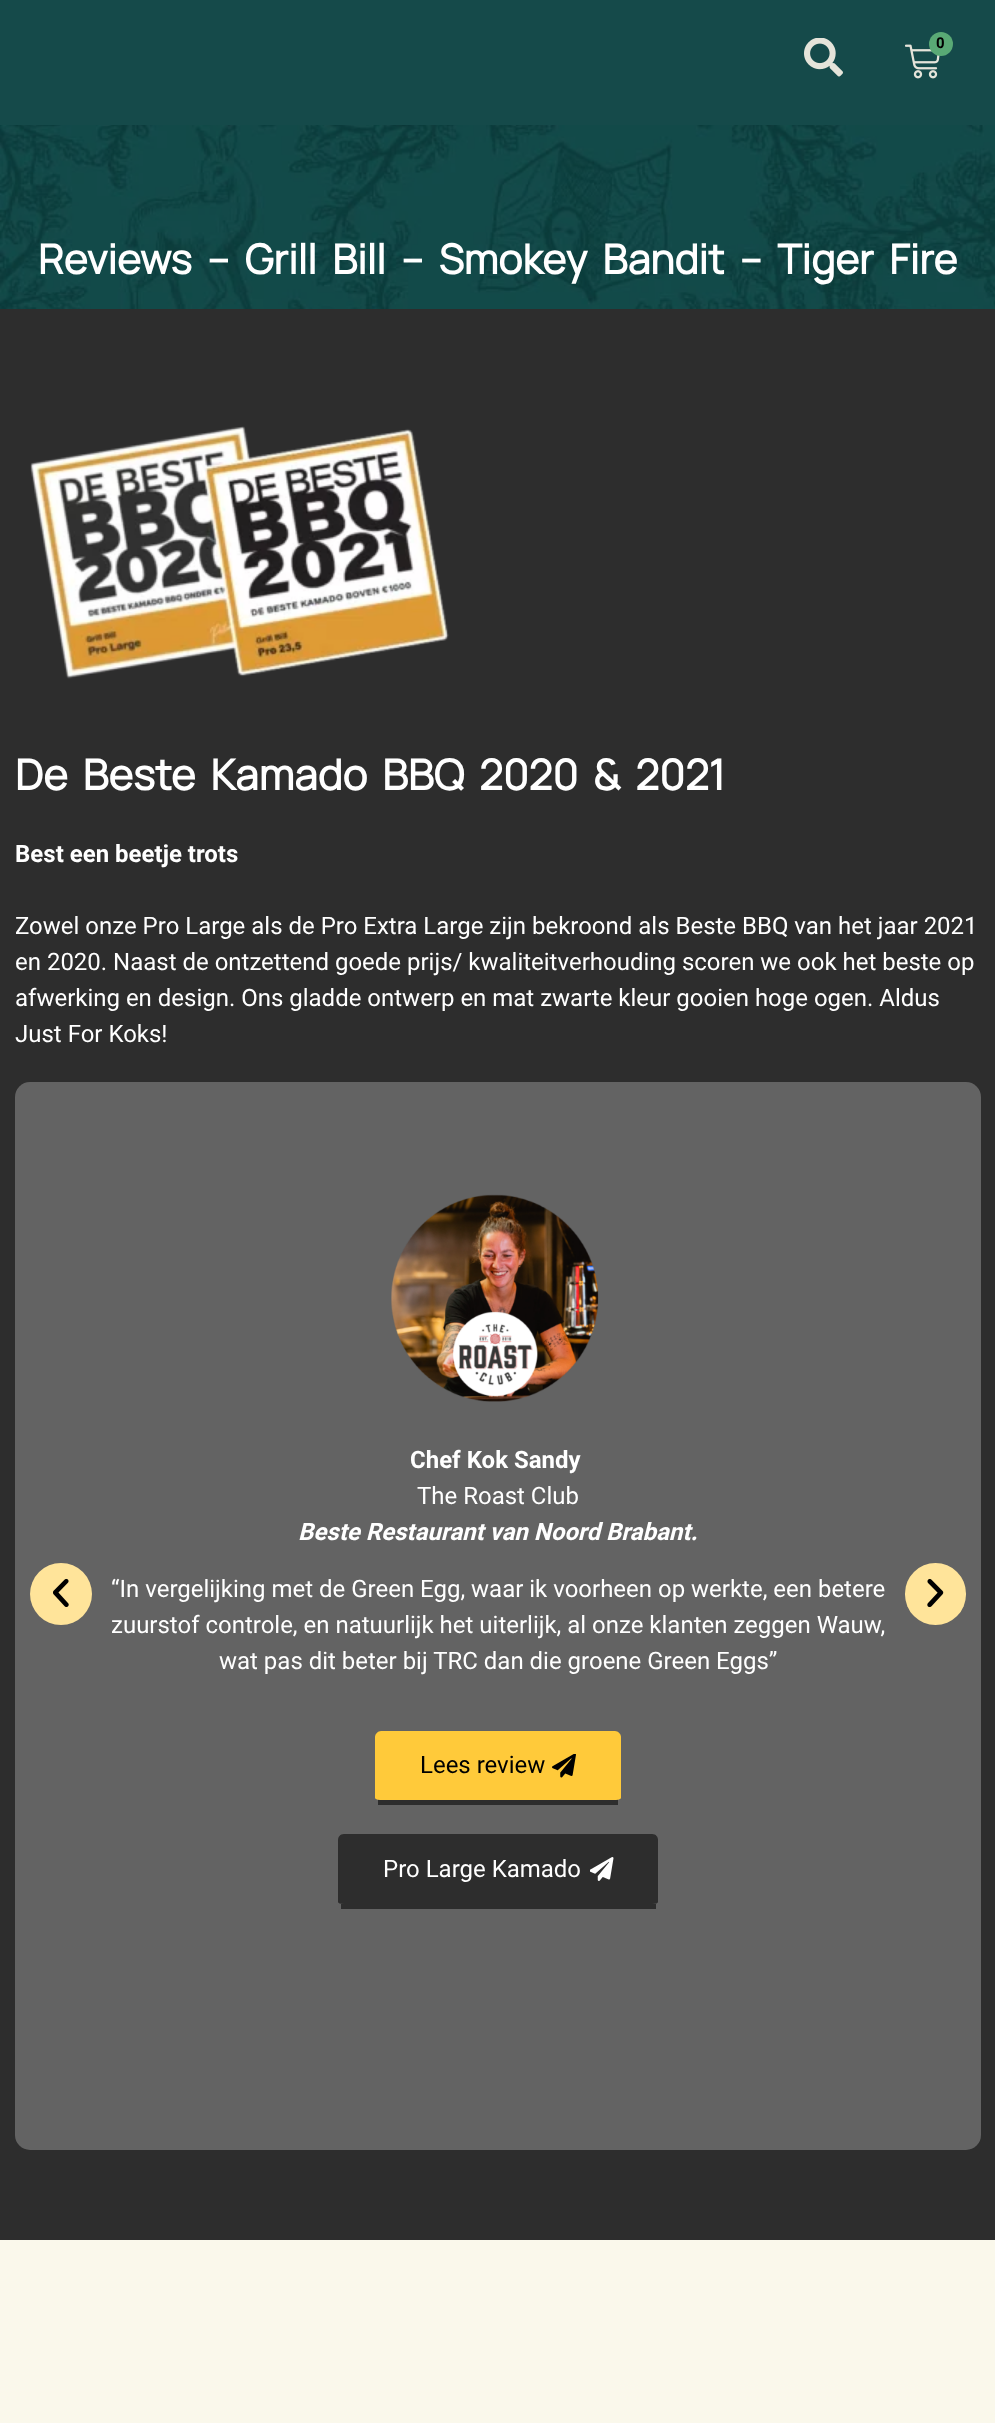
async function draw(canvas) {
  canvas.width = 995;
  canvas.height = 2423;
  const ctx = canvas.getContext('2d');
  ctx.miterLimit = 4;
  ctx.fontKerning = 'normal';
  function label(s, x, y, font, color) {
    ctx.font = font;
    ctx.fillStyle = color;
    ctx.fillText(s, x, y);
  }
  function rect(x, y, w, h, color) {
    ctx.fillStyle = color;
    ctx.fillRect(x, y, w, h);
  }
  function roundedRect(x, y, w, h, r, color) {
    ctx.fillStyle = color;
    ctx.beginPath();
    ctx.roundRect(x, y, w, h, r);
    ctx.fill();
  }
  async function image(src, x, y, w, h) {
    const img = new Image();
    img.src = src;
    await img.decode();
    ctx.drawImage(img, x, y, w, h);
  }
  let path;

  rect(0, 0, 995, 2423, '#154a4a');
  await image('assets/img1.png', 804, 38, 39, 39);
  await image('assets/img2.png', 905, 44, 35, 35);
  ctx.fillStyle = '#59a975';
  ctx.beginPath();
  ctx.arc(941, 44, 12, 0, 2 * Math.PI);
  ctx.fill();
  label('0', 936, 48, 'bold 15px Roboto', '#000');
  await image('assets/img3.png', 0, 125, 995, 184);
  ctx.wordSpacing = '7.25px';
  label('Reviews – Grill Bill – Smokey Bandit – Tiger Fire', 38, 274, 'bold 40.8px Manrope', '#fff');
  rect(0, 309, 995, 1931, '#2d2d2d');
  await image('assets/img4.png', 30, 426, 419, 253);
  ctx.wordSpacing = '6.5px';
  label('De Beste Kamado BBQ 2020 & 2021', 15, 790, 'bold 42px Manrope', '#fff');
  ctx.wordSpacing = '0px';
  label('Best een beetje trots', 15, 862, 'bold 24px Roboto', '#fff');
  label('Zowel onze Pro Large als de Pro Extra Large zijn bekroond als Beste BBQ van het jaar 2021', 15, 934, '24px Roboto', '#fff');
  label('en 2020. Naast de ontzettend goede prijs/ kwaliteitverhouding scoren we ook het beste op', 15, 970, '24px Roboto', '#fff');
  label('afwerking en design. Ons gladde ontwerp en mat zwarte kleur gooien hoge ogen. Aldus', 15, 1006, '24px Roboto', '#fff');
  label('Just For Koks!', 15, 1042, '24px Roboto', '#fff');
  roundedRect(15, 1082, 966, 1068, 15, '#636363');
  ctx.fillStyle = '#ffe49a';
  ctx.beginPath();
  ctx.arc(61, 1594, 31, 0, 2 * Math.PI);
  ctx.fill();
  await image('assets/img5.png', 53, 1578, 16, 29);
  await image('assets/img6.png', 391, 1194, 208, 208);
  label('Chef Kok Sandy', 410, 1468, 'bold 24px Roboto', '#fff');
  label('The Roast Club', 417, 1504, '24px Roboto', '#fff');
  label('Beste Restaurant van Noord Brabant.', 298, 1540, 'italic bold 24px Roboto', '#fff');
  label('“In vergelijking met de Green Egg, waar ik voorheen op werkte, een betere', 111, 1597, '24px Roboto', '#fff');
  label('zuurstof controle, en natuurlijk het uiterlijk, al onze klanten zeggen Wauw,', 111, 1633, '24px Roboto', '#fff');
  label('wat pas dit beter bij TRC dan die groene Green Eggs”', 219, 1669, '24px Roboto', '#fff');
  ctx.fillStyle = '#ffca3a';
  path = new Path2D('M381 1731H615C618 1731 621 1734 621 1737V1798C621 1799 618 1800 615 1800H381C378 1800 375 1799 375 1798V1737C375 1734 378 1731 381 1731Z');
  ctx.fill(path);
  rect(378, 1800, 240, 5, '#2d2d2d');
  label('Lees review', 420, 1773, '24px Roboto', '#000');
  await image('assets/img7.png', 552, 1754, 24, 24);
  ctx.fillStyle = '#2d2d2d';
  path = new Path2D('M344 1834H652C656 1834 658 1837 658 1840V1902C658 1903 656 1904 652 1904H344C340 1904 338 1903 338 1902V1840C338 1837 340 1834 344 1834Z');
  ctx.fill(path);
  rect(341, 1904, 315, 5, '#2d2d2d');
  label('Pro Large Kamado', 383, 1877, '24px Roboto', '#fff');
  await image('assets/img8.png', 590, 1857, 24, 24);
  roundedRect(905, 1563, 61, 62, 30.5, '#ffe49a');
  await image('assets/img9.png', 927, 1578, 17, 30);
  rect(0, 2240, 995, 183, '#faf8eb');
}

draw(document.querySelector('canvas'));
